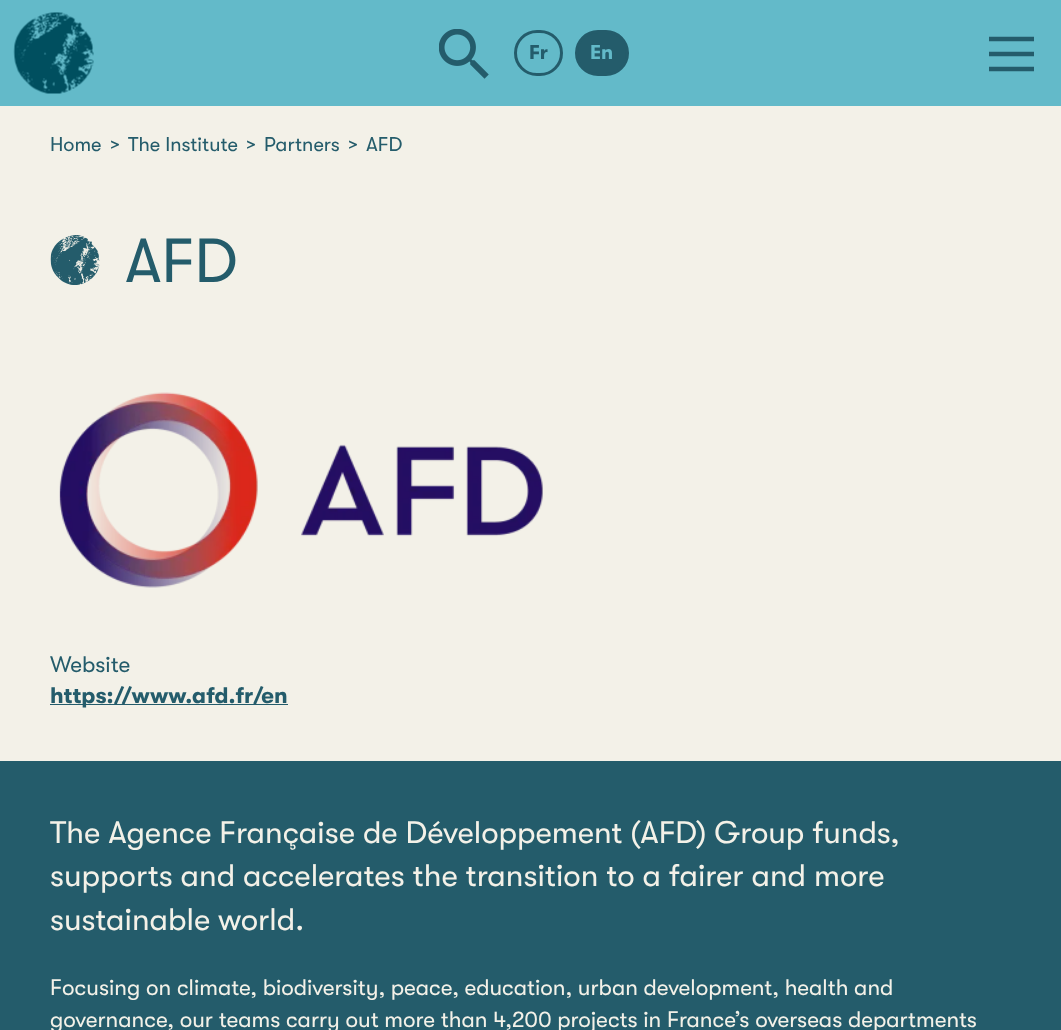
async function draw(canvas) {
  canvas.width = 1061;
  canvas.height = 1030;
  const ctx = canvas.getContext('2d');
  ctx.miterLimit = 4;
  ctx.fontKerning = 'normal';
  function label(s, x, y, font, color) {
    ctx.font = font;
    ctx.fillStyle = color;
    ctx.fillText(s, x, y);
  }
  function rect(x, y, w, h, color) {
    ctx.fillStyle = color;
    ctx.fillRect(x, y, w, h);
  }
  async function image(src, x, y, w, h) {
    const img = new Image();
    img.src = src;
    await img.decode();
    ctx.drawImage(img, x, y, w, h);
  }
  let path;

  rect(0, 0, 1061, 1030, '#f3f1e8');
  rect(0, 0, 1061, 106, '#63bac9');
  await image('assets/img1.png', 13, 12, 81, 82);
  await image('assets/img2.png', 439, 29, 50, 50);
  ctx.beginPath();
  ctx.roundRect(515.5, 31.5, 46, 43, 21.5);
  ctx.strokeStyle = '#245c6b';
  ctx.lineWidth = 3;
  ctx.stroke();
  label('Fr', 529, 59, 'bold 20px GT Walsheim', '#245c6b');
  ctx.beginPath();
  ctx.roundRect(576.5, 31.5, 51, 43, 21.5);
  ctx.fill();
  ctx.stroke();
  label('En', 590, 59, 'bold 20px GT Walsheim', '#63bac9');
  path = new Path2D('M989 39H1034M989 54H1034M989 69H1034');
  ctx.lineWidth = 4.5;
  ctx.stroke(path);
  label('Home', 50, 151, '20px GT Walsheim', '#245c6b');
  label('>', 110, 151, '20px GT Walsheim', '#245c6b');
  label('The Institute', 128, 151, '20px GT Walsheim', '#245c6b');
  label('>', 246, 151, '20px GT Walsheim', '#245c6b');
  label('Partners', 264, 151, '20px GT Walsheim', '#245c6b');
  label('>', 348, 151, '20px GT Walsheim', '#245c6b');
  label('AFD', 366, 151, '20px GT Walsheim', '#245c6b');
  await image('assets/img3.png', 50, 235, 50, 50);
  label('AFD', 125, 282, '62px GT Walsheim', '#245c6b');
  await image('assets/img4.png', 59, 392, 484, 196);
  label('Website', 50, 672, '22.5px GT Walsheim', '#245c6b');
  rect(50, 704, 238, 1, '#245c6b');
  label('https://www.afd.fr/en', 50, 703, 'bold 22.5px GT Walsheim', '#245c6b');
  rect(0, 761, 1061, 269, '#245c6b');
  label('The Agence Française de Développement (AFD) Group funds,', 50, 843, '31.25px GT Walsheim', '#f3f1e8');
  label('supports and accelerates the transition to a fairer and more', 50, 886, '31.25px GT Walsheim', '#f3f1e8');
  label('sustainable world.', 50, 930, '31.25px GT Walsheim', '#f3f1e8');
  label('Focusing on climate, biodiversity, peace, education, urban development, health and', 50, 995, '22.5px GT Walsheim', '#f3f1e8');
  label('governance, our teams carry out more than 4,200 projects in France’s overseas departments', 50, 1027, '22.5px GT Walsheim', '#f3f1e8');
}

draw(document.querySelector('canvas'));
